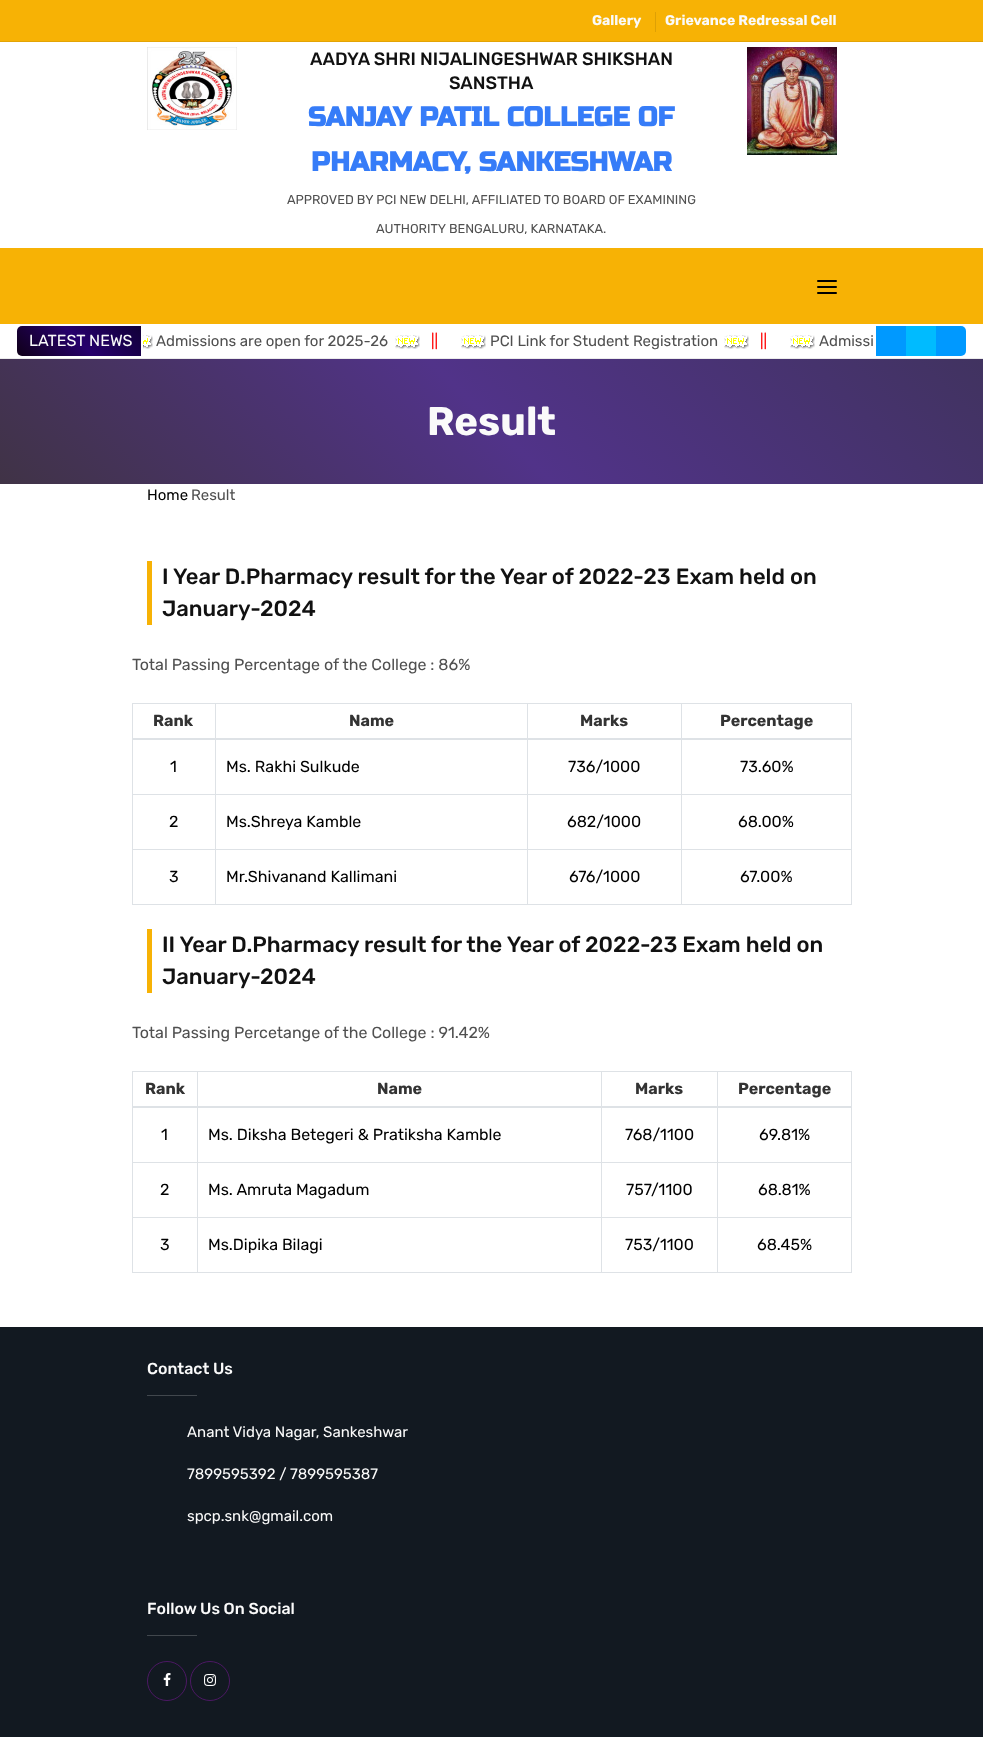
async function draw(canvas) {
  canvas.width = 983;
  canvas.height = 1737;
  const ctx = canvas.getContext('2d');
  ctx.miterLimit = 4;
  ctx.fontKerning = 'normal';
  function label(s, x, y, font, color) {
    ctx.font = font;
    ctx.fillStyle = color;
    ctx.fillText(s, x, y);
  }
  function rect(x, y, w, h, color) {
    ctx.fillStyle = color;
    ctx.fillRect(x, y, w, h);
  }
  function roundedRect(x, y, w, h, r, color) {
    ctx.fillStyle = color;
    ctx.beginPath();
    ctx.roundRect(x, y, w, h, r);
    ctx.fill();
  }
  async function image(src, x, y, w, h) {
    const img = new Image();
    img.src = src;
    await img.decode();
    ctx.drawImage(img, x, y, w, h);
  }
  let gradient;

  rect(0, 0, 983, 1737, '#fff');
  rect(0, 0, 983, 41, '#f7b205');
  rect(0, 41, 983, 1, '#e3a405');
  label('Gallery', 592, 25, 'bold 14px Rubik', '#fafafa');
  rect(655, 12, 1, 20, '#dea005');
  label('Grievance Redressal Cell', 665, 25, 'bold 14px Rubik', '#fafafa');
  await image('assets/img1.png', 147, 47, 90, 83);
  label('AADYA SHRI NIJALINGESHWAR SHIKSHAN', 310, 65, '500 18px Rubik', '#111');
  label('SANSTHA', 449, 89, '500 18px Rubik', '#111');
  label('SANJAY PATIL COLLEGE OF', 308, 126, 'bold 27px Russo One', '#367cf8');
  label('PHARMACY, SANKESHWAR', 311, 171, 'bold 27px Russo One', '#367cf8');
  label('APPROVED BY PCI NEW DELHI, AFFILIATED TO BOARD OF EXAMINING', 287, 204, '12.8px Rubik', '#505050');
  label('AUTHORITY BENGALURU, KARNATAKA.', 376, 233, '12.8px Rubik', '#505050');
  await image('assets/img2.png', 747, 47, 90, 108);
  rect(0, 248, 983, 76, '#f7b205');
  roundedRect(817, 280, 20, 2, 1, '#000');
  roundedRect(817, 286, 20, 2, 1, '#000');
  roundedRect(817, 292, 20, 2, 1, '#000');
  rect(0, 358, 983, 1, '#ebebeb');
  gradient = ctx.createLinearGradient(41, 380, 118, 303);
  gradient.addColorStop(0, '#100018');
  gradient.addColorStop(0.5, '#26006c');
  gradient.addColorStop(1, '#110038');
  ctx.fillStyle = gradient;
  ctx.beginPath();
  ctx.roundRect(17, 326, 124, 30, [5, 0, 0, 5]);
  ctx.fill();
  label('LATEST NEWS', 29, 346, '16px Rubik', '#fafafa');
  await image('assets/img3.png', 143, 335, 10, 14);
  label('Admissions are open for 2025-26', 156, 346, '15px Rubik', '#505050');
  await image('assets/img4.png', 395, 335, 25, 14);
  label('||', 431, 346, '15px Rubik', '#f00');
  await image('assets/img4.png', 461, 335, 25, 14);
  label('PCI Link for Student Registration', 490, 346, '15px Rubik', '#505050');
  await image('assets/img4.png', 724, 335, 25, 14);
  label('||', 760, 346, '15px Rubik', '#f00');
  await image('assets/img4.png', 790, 335, 25, 14);
  label('Admissi', 819, 346, '15px Rubik', '#505050');
  rect(876, 326, 30, 30, '#09f');
  rect(906, 326, 30, 30, '#0bf');
  ctx.fillStyle = '#09f';
  ctx.beginPath();
  ctx.roundRect(936, 326, 30, 30, [0, 5, 5, 0]);
  ctx.fill();
  gradient = ctx.createLinearGradient(215, 699, 769, 145);
  gradient.addColorStop(0, '#403346');
  gradient.addColorStop(0.5, '#513389');
  gradient.addColorStop(1, '#413360');
  ctx.fillStyle = gradient;
  ctx.fillRect(0, 359, 983, 125);
  label('Result', 427, 435, 'bold 40px Rubik', '#fafafa');
  label('Home', 147, 500, '15px Rubik', '#000');
  label('Result', 191, 500, '15px Rubik', '#505050');
  rect(147, 561, 5, 64, '#f7b205');
  label('I Year D.Pharmacy result for the Year of 2022-23 Exam held on', 162, 584, '500 22px Rubik', '#111');
  label('January-2024', 162, 616, '500 22px Rubik', '#111');
  label('Total Passing Percentage of the College : 86%', 132, 670, '16px Rubik', '#505050');
  rect(681, 703, 171, 1, '#dee2e6');
  rect(681, 794, 171, 1, '#dee2e6');
  rect(681, 849, 171, 1, '#dee2e6');
  rect(851, 849, 1, 56, '#dee2e6');
  rect(681, 904, 171, 1, '#dee2e6');
  rect(681, 849, 1, 56, '#dee2e6');
  rect(527, 849, 155, 1, '#dee2e6');
  rect(681, 794, 1, 56, '#dee2e6');
  rect(527, 794, 155, 1, '#dee2e6');
  rect(681, 738, 1, 57, '#dee2e6');
  rect(681, 703, 1, 36, '#dee2e6');
  rect(527, 703, 155, 1, '#dee2e6');
  rect(527, 904, 155, 1, '#dee2e6');
  rect(527, 849, 1, 56, '#dee2e6');
  rect(215, 849, 313, 1, '#dee2e6');
  rect(527, 794, 1, 56, '#dee2e6');
  rect(215, 794, 313, 1, '#dee2e6');
  rect(527, 738, 1, 57, '#dee2e6');
  rect(527, 703, 1, 36, '#dee2e6');
  rect(215, 703, 313, 1, '#dee2e6');
  rect(215, 904, 313, 1, '#dee2e6');
  rect(215, 849, 1, 56, '#dee2e6');
  rect(132, 849, 84, 1, '#dee2e6');
  rect(215, 794, 1, 56, '#dee2e6');
  rect(132, 794, 84, 1, '#dee2e6');
  rect(215, 738, 1, 57, '#dee2e6');
  rect(215, 703, 1, 36, '#dee2e6');
  rect(132, 703, 84, 1, '#dee2e6');
  rect(132, 904, 84, 1, '#dee2e6');
  rect(132, 849, 1, 56, '#dee2e6');
  rect(132, 738, 1, 112, '#dee2e6');
  rect(132, 703, 1, 36, '#dee2e6');
  label('Rank', 153, 726, 'bold 16px Rubik', '#333');
  label('Name', 349, 726, 'bold 16px Rubik', '#333');
  label('Marks', 580, 726, 'bold 16px Rubik', '#333');
  rect(851, 738, 1, 112, '#dee2e6');
  rect(851, 703, 1, 36, '#dee2e6');
  rect(132, 738, 720, 2, '#dee2e6');
  label('Percentage', 720, 726, 'bold 16px Rubik', '#333');
  label('1', 170, 772, '16px Rubik', '#000');
  label('Ms. Rakhi Sulkude', 226, 772, '16px Rubik', '#000');
  label('736/1000', 568, 772, '16px Rubik', '#000');
  label('73.60%', 740, 772, '16px Rubik', '#000');
  label('2', 169, 827, '16px Rubik', '#000');
  label('Ms.Shreya Kamble', 226, 827, '16px Rubik', '#000');
  label('682/1000', 567, 827, '16px Rubik', '#000');
  label('68.00%', 738, 827, '16px Rubik', '#000');
  label('3', 169, 882, '16px Rubik', '#000');
  label('Mr.Shivanand Kallimani', 226, 882, '16px Rubik', '#000');
  label('676/1000', 569, 882, '16px Rubik', '#000');
  label('67.00%', 740, 882, '16px Rubik', '#000');
  rect(147, 929, 5, 64, '#f7b205');
  label('II Year D.Pharmacy result for the Year of 2022-23 Exam held on', 162, 952, '500 22px Rubik', '#111');
  label('January-2024', 162, 984, '500 22px Rubik', '#111');
  label('Total Passing Percetange of the College : 91.42%', 132, 1038, '16px Rubik', '#505050');
  rect(717, 1071, 135, 1, '#dee2e6');
  rect(717, 1162, 135, 1, '#dee2e6');
  rect(717, 1217, 135, 1, '#dee2e6');
  rect(851, 1217, 1, 56, '#dee2e6');
  rect(717, 1272, 135, 1, '#dee2e6');
  rect(717, 1217, 1, 56, '#dee2e6');
  rect(601, 1217, 117, 1, '#dee2e6');
  rect(717, 1162, 1, 56, '#dee2e6');
  rect(601, 1162, 117, 1, '#dee2e6');
  rect(717, 1106, 1, 57, '#dee2e6');
  rect(717, 1071, 1, 36, '#dee2e6');
  rect(601, 1071, 117, 1, '#dee2e6');
  rect(601, 1272, 117, 1, '#dee2e6');
  rect(601, 1217, 1, 56, '#dee2e6');
  rect(197, 1217, 405, 1, '#dee2e6');
  rect(601, 1162, 1, 56, '#dee2e6');
  rect(197, 1162, 405, 1, '#dee2e6');
  rect(601, 1106, 1, 57, '#dee2e6');
  rect(601, 1071, 1, 36, '#dee2e6');
  rect(197, 1071, 405, 1, '#dee2e6');
  rect(197, 1272, 405, 1, '#dee2e6');
  rect(197, 1217, 1, 56, '#dee2e6');
  rect(132, 1217, 66, 1, '#dee2e6');
  rect(197, 1162, 1, 56, '#dee2e6');
  rect(132, 1162, 66, 1, '#dee2e6');
  rect(197, 1106, 1, 57, '#dee2e6');
  rect(197, 1071, 1, 36, '#dee2e6');
  rect(132, 1071, 66, 1, '#dee2e6');
  rect(132, 1272, 66, 1, '#dee2e6');
  rect(132, 1217, 1, 56, '#dee2e6');
  rect(132, 1106, 1, 112, '#dee2e6');
  rect(132, 1071, 1, 36, '#dee2e6');
  label('Rank', 145, 1094, 'bold 16px Rubik', '#333');
  label('Name', 377, 1094, 'bold 16px Rubik', '#333');
  label('Marks', 635, 1094, 'bold 16px Rubik', '#333');
  rect(851, 1106, 1, 112, '#dee2e6');
  rect(851, 1071, 1, 36, '#dee2e6');
  rect(132, 1106, 720, 2, '#dee2e6');
  label('Percentage', 738, 1094, 'bold 16px Rubik', '#333');
  label('1', 161, 1140, '16px Rubik', '#000');
  label('Ms. Diksha Betegeri & Pratiksha Kamble', 208, 1140, '16px Rubik', '#000');
  label('768/1100', 625, 1140, '16px Rubik', '#000');
  label('69.81%', 759, 1140, '16px Rubik', '#000');
  label('2', 160, 1195, '16px Rubik', '#000');
  label('Ms. Amruta Magadum', 208, 1195, '16px Rubik', '#000');
  label('757/1100', 626, 1195, '16px Rubik', '#000');
  label('68.81%', 758, 1195, '16px Rubik', '#000');
  label('3', 160, 1250, '16px Rubik', '#000');
  label('Ms.Dipika Bilagi', 208, 1250, '16px Rubik', '#000');
  label('753/1100', 625, 1250, '16px Rubik', '#000');
  label('68.45%', 757, 1250, '16px Rubik', '#000');
  rect(0, 1327, 983, 410, '#121921');
  label('Contact Us', 147, 1374, '500 16px Rubik', '#fafafa');
  rect(147, 1395, 50, 1, '#41474d');
  label('Anant Vidya Nagar, Sankeshwar', 187, 1437, '15px Rubik', '#fafafa');
  label('7899595392 / 7899595387', 187, 1479, '15px Rubik', '#fafafa');
  label('spcp.snk@gmail.com', 187, 1521, '15px Rubik', '#fafafa');
  label('Follow Us On Social', 147, 1614, '500 16px Rubik', '#fafafa');
  rect(147, 1635, 50, 1, '#41474d');
  ctx.beginPath();
  ctx.arc(167, 1681, 19.5, 0, 2 * Math.PI);
  ctx.strokeStyle = '#4c1864';
  ctx.stroke();
  await image('assets/img5.png', 163, 1673, 8, 13);
  ctx.beginPath();
  ctx.arc(210, 1681, 19.5, 0, 2 * Math.PI);
  ctx.stroke();
  await image('assets/img6.png', 204, 1674, 12, 12);
}

draw(document.querySelector('canvas'));
